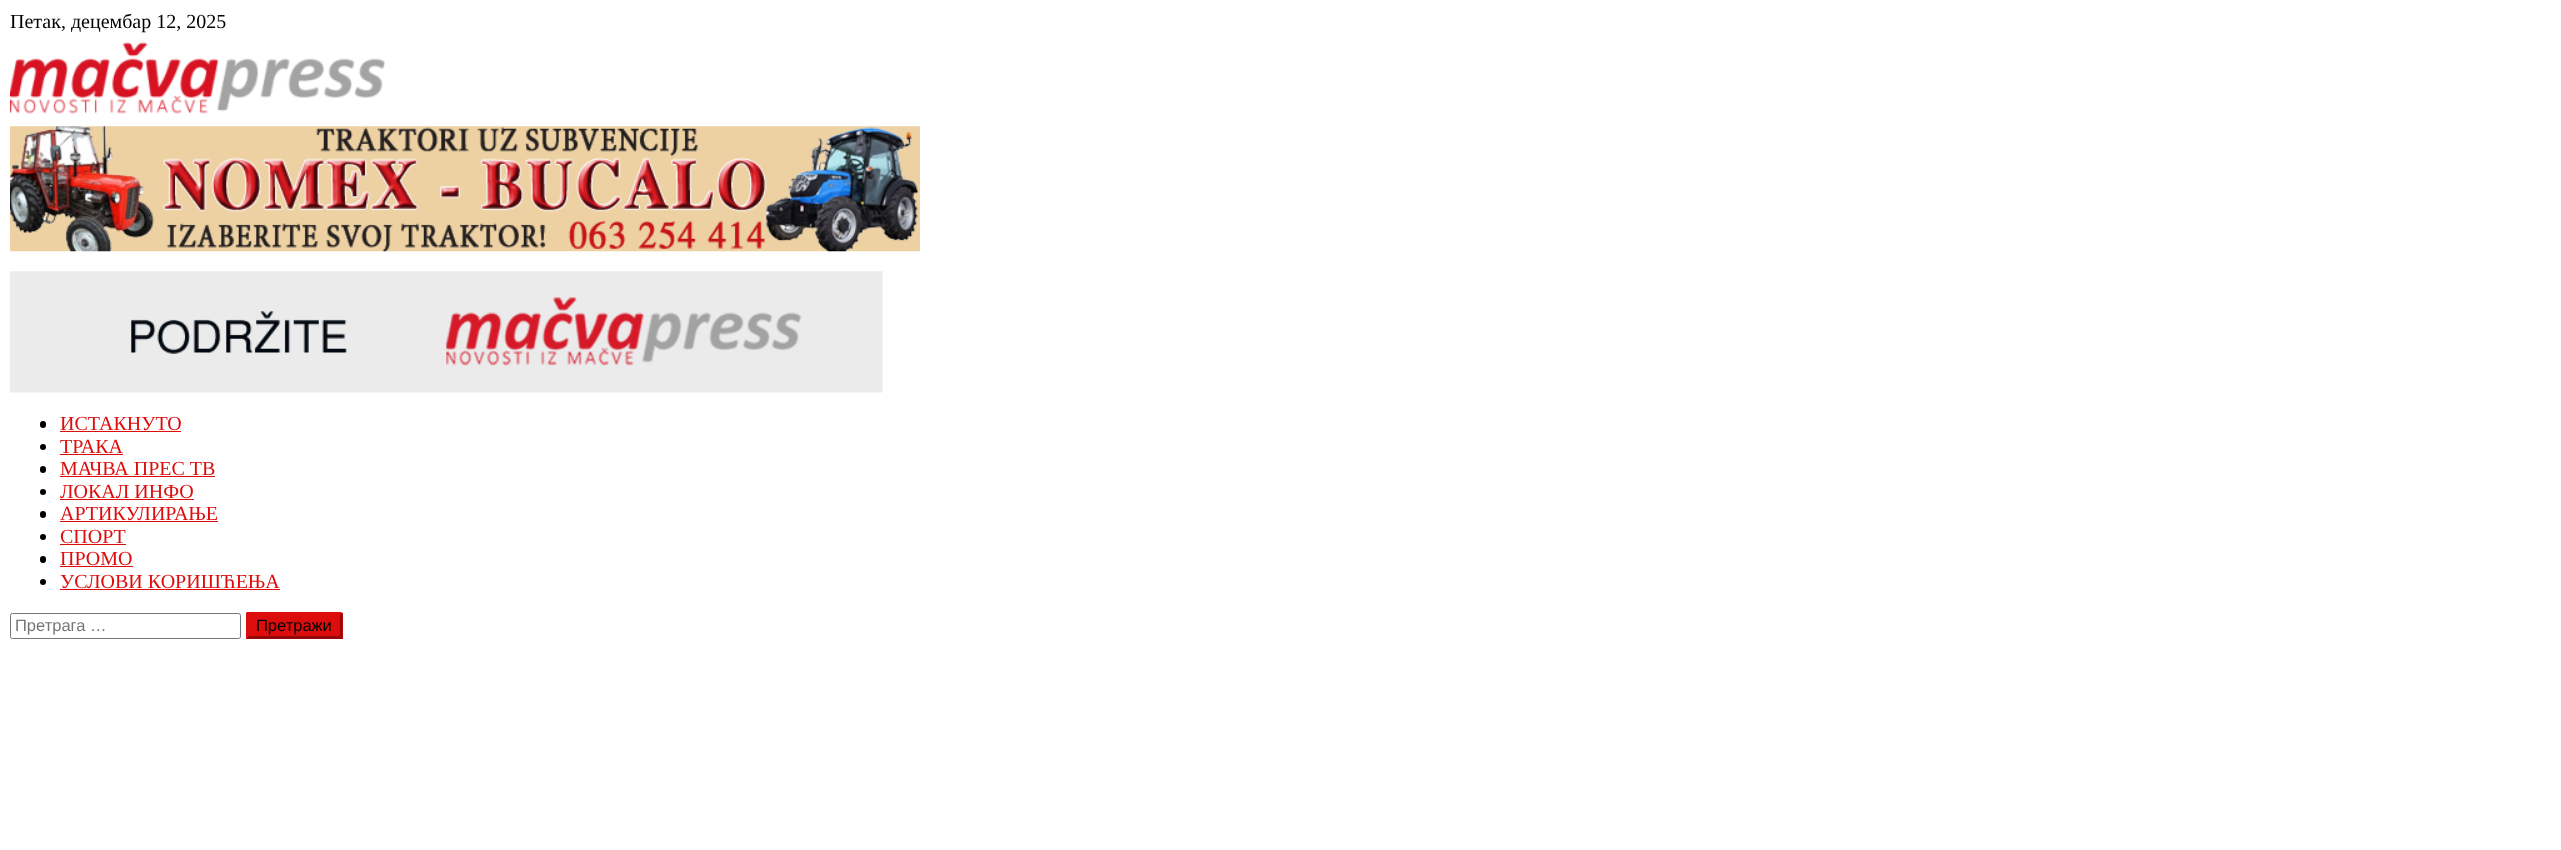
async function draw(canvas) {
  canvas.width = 2561;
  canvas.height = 850;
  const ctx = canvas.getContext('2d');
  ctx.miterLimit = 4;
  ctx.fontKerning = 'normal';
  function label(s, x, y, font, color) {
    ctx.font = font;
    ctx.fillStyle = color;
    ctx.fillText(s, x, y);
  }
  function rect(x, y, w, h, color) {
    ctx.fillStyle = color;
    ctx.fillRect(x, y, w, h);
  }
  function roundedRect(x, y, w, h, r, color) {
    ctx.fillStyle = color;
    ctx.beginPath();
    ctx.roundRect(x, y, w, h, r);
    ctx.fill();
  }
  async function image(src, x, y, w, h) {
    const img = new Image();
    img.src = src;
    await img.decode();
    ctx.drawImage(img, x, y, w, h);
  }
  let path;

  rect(0, 0, 2561, 850, '#fff');
  label('Петак, децембар 12, 2025', 10, 28, '20px Liberation Serif', '#000');
  await image('assets/img1.png', 10, 42, 375, 72);
  await image('assets/img2.png', 10, 126, 910, 126);
  await image('assets/img3.png', 10, 271, 873, 122);
  roundedRect(40, 421, 6, 7, 3, '#000');
  label('ИСТАКНУТО', 60, 430, '20px Liberation Serif', '#dd0d0d');
  rect(60, 431, 121, 1, '#dd0d0d');
  ctx.fillStyle = '#000';
  ctx.beginPath();
  ctx.arc(43, 447, 3, 0, 2 * Math.PI);
  ctx.fill();
  label('ТРАКА', 60, 453, '20px Liberation Serif', '#dd0d0d');
  rect(60, 454, 63, 1, '#dd0d0d');
  roundedRect(40, 466, 6, 7, 3, '#000');
  label('МАЧВА ПРЕС ТВ', 60, 475, '20px Liberation Serif', '#dd0d0d');
  rect(60, 476, 155, 1, '#dd0d0d');
  ctx.fillStyle = '#000';
  ctx.beginPath();
  ctx.arc(43, 492, 3, 0, 2 * Math.PI);
  ctx.fill();
  label('ЛОКАЛ ИНФО', 60, 498, '20px Liberation Serif', '#dd0d0d');
  rect(60, 499, 134, 1, '#dd0d0d');
  roundedRect(40, 511, 6, 7, 3, '#000');
  label('АРТИКУЛИРАЊЕ', 60, 520, '20px Liberation Serif', '#dd0d0d');
  rect(60, 521, 158, 1, '#dd0d0d');
  ctx.fillStyle = '#000';
  ctx.beginPath();
  ctx.arc(43, 537, 3, 0, 2 * Math.PI);
  ctx.fill();
  label('СПОРТ', 60, 543, '20px Liberation Serif', '#dd0d0d');
  rect(60, 544, 66, 1, '#dd0d0d');
  roundedRect(40, 556, 6, 7, 3, '#000');
  label('ПРОМО', 60, 565, '20px Liberation Serif', '#dd0d0d');
  rect(60, 566, 73, 1, '#dd0d0d');
  ctx.fillStyle = '#000';
  ctx.beginPath();
  ctx.arc(43, 582, 3, 0, 2 * Math.PI);
  ctx.fill();
  label('УСЛОВИ КОРИШЋЕЊА', 60, 588, '20px Liberation Serif', '#dd0d0d');
  rect(60, 589, 220, 1, '#dd0d0d');
  ctx.beginPath();
  ctx.roundRect(10.5, 613.5, 230, 25, 2);
  ctx.strokeStyle = '#767676';
  ctx.stroke();
  label('Претрага …', 15, 631, '16.5px Liberation Sans', '#757575');
  rect(246, 613, 97, 26, '#dd0d0d');
  path = new Path2D('M246 612H342L340 615H249Z');
  ctx.fill(path);
  ctx.fillStyle = '#930909';
  path = new Path2D('M342.5 612.5V639L340 636V615Z');
  ctx.fill(path);
  path = new Path2D('M342 639H246L249 636H340Z');
  ctx.fill(path);
  ctx.fillStyle = '#dd0d0d';
  path = new Path2D('M246 639V612.5L249 615V636Z');
  ctx.fill(path);
  label('Претражи', 256, 631, '16.5px Liberation Sans', '#000');
}

draw(document.querySelector('canvas'));
